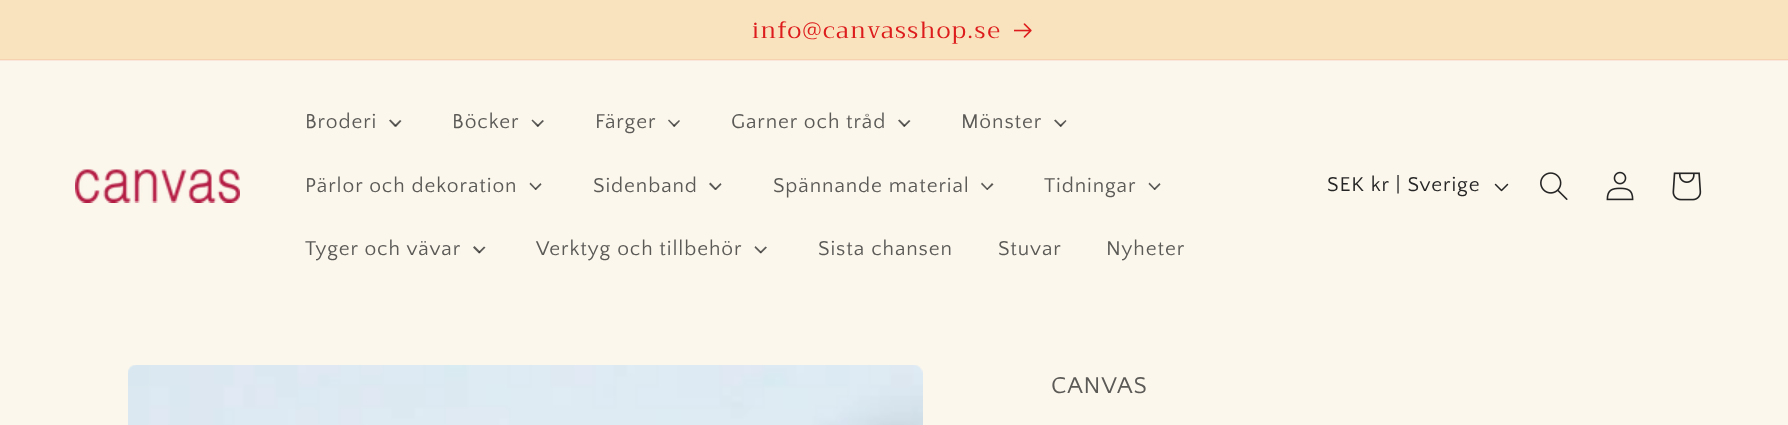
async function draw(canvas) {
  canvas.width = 1788;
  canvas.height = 425;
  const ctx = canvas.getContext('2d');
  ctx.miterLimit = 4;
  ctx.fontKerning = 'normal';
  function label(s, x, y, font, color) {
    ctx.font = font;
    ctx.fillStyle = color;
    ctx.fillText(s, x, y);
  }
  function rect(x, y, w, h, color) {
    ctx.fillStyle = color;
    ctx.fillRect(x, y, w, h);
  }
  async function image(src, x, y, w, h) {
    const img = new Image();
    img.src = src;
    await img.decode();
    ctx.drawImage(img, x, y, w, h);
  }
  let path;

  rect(0, 0, 1788, 425, '#fcf7ec');
  rect(0, 0, 1788, 59, '#f9e2be');
  rect(0, 59, 1788, 1, '#f7d2b1');
  ctx.letterSpacing = '1.5px';
  label('info@canvasshop.se', 752, 38, '23.4px Trirong', '#dd1d1d');
  await image('assets/img1.png', 1014, 23, 18, 15);
  rect(0, 60, 1788, 1, '#fae6db');
  await image('assets/img2.png', 75, 169, 165, 34);
  ctx.letterSpacing = '0.9px';
  label('Broderi', 305, 128, '21px Quattrocento Sans', '#5b5a57');
  path = new Path2D('M400 120L401.5 121L396 127L394.5 125.5Z');
  ctx.fill(path);
  ctx.fillStyle = '#252525bf';
  path = new Path2D('M390.5 119.5L396.5 125.5L395 127L389 120.5Z');
  ctx.fill(path);
  label('Böcker', 452, 128, '21px Quattrocento Sans', '#5b5a57');
  path = new Path2D('M542.5 120L544 121L538 127L537 125.5Z');
  ctx.fill(path);
  ctx.fillStyle = '#252525bf';
  path = new Path2D('M532.5 119.5L539 125.5L537.5 127L531.5 120.5Z');
  ctx.fill(path);
  label('Färger', 595, 128, '21px Quattrocento Sans', '#5b5a57');
  path = new Path2D('M679 120L680 121L674.5 127L673 125.5Z');
  ctx.fill(path);
  ctx.fillStyle = '#252525bf';
  path = new Path2D('M669 119.5L675 125.5L674 127L668 120.5Z');
  ctx.fill(path);
  label('Garner och tråd', 731, 128, '21px Quattrocento Sans', '#5b5a57');
  path = new Path2D('M909 120L910.5 121L904.5 127L903.5 125.5Z');
  ctx.fill(path);
  ctx.fillStyle = '#252525bf';
  path = new Path2D('M899.5 119.5L905.5 125.5L904 127L898 120.5Z');
  ctx.fill(path);
  label('Mönster', 961, 128, '21px Quattrocento Sans', '#5b5a57');
  path = new Path2D('M1065.5 120L1066.5 121L1061 127L1059.5 125.5Z');
  ctx.fill(path);
  ctx.fillStyle = '#252525bf';
  path = new Path2D('M1055.5 119.5L1061.5 125.5L1060.5 127L1054 120.5Z');
  ctx.fill(path);
  label('Pärlor och dekoration', 305, 192, '21px Quattrocento Sans', '#5b5a57');
  path = new Path2D('M540.5 183L541.5 184.5L536 190L534.5 189Z');
  ctx.fill(path);
  ctx.fillStyle = '#252525bf';
  path = new Path2D('M530.5 182.5L536.5 189L535.5 190L529.5 184Z');
  ctx.fill(path);
  label('Sidenband', 593, 192, '21px Quattrocento Sans', '#5b5a57');
  path = new Path2D('M720.5 183L721.5 184.5L716 190L714.5 189Z');
  ctx.fill(path);
  ctx.fillStyle = '#252525bf';
  path = new Path2D('M710.5 182.5L716.5 189L715 190L709 184Z');
  ctx.fill(path);
  label('Spännande material', 773, 192, '21px Quattrocento Sans', '#5b5a57');
  path = new Path2D('M992 183L993.5 184.5L987.5 190L986.5 189Z');
  ctx.fill(path);
  ctx.fillStyle = '#252525bf';
  path = new Path2D('M982 182.5L988 189L987 190L981 184Z');
  ctx.fill(path);
  label('Tidningar', 1044, 192, '21px Quattrocento Sans', '#5b5a57');
  path = new Path2D('M1159.5 183L1160.5 184.5L1155 190L1153.5 189Z');
  ctx.fill(path);
  ctx.fillStyle = '#252525bf';
  path = new Path2D('M1149.5 182.5L1155.5 189L1154.5 190L1148.5 184Z');
  ctx.fill(path);
  label('Tyger och vävar', 305, 255, '21px Quattrocento Sans', '#5b5a57');
  path = new Path2D('M484 246.5L485.5 247.5L479.5 253.5L478.5 252Z');
  ctx.fill(path);
  ctx.fillStyle = '#252525bf';
  path = new Path2D('M474.5 246L480.5 252L479 253.5L473 247.5Z');
  ctx.fill(path);
  label('Verktyg och tillbehör', 536, 255, '21px Quattrocento Sans', '#5b5a57');
  path = new Path2D('M765.5 246.5L767 247.5L761 253.5L760 252Z');
  ctx.fill(path);
  ctx.fillStyle = '#252525bf';
  path = new Path2D('M755.5 246L761.5 252L760.5 253.5L754.5 247.5Z');
  ctx.fill(path);
  label('Sista chansen', 818, 255, '21px Quattrocento Sans', '#5b5a57');
  label('Stuvar', 998, 255, '21px Quattrocento Sans', '#5b5a57');
  label('Nyheter', 1106, 255, '21px Quattrocento Sans', '#5b5a57');
  label('SEK kr | Sverige', 1327, 191, '21px Quattrocento Sans', '#252525');
  await image('assets/img3.png', 1494, 183, 15, 9);
  await image('assets/img4.png', 1540, 172, 28, 28);
  await image('assets/img5.png', 1606, 171, 28, 30);
  await image('assets/img6.png', 1672, 172, 30, 29);
  await image('assets/img7.png', 128, 365, 795, 60);
  label('CANVAS', 1051, 393, '24px Quattrocento Sans', '#5b5a57');
}

draw(document.querySelector('canvas'));
